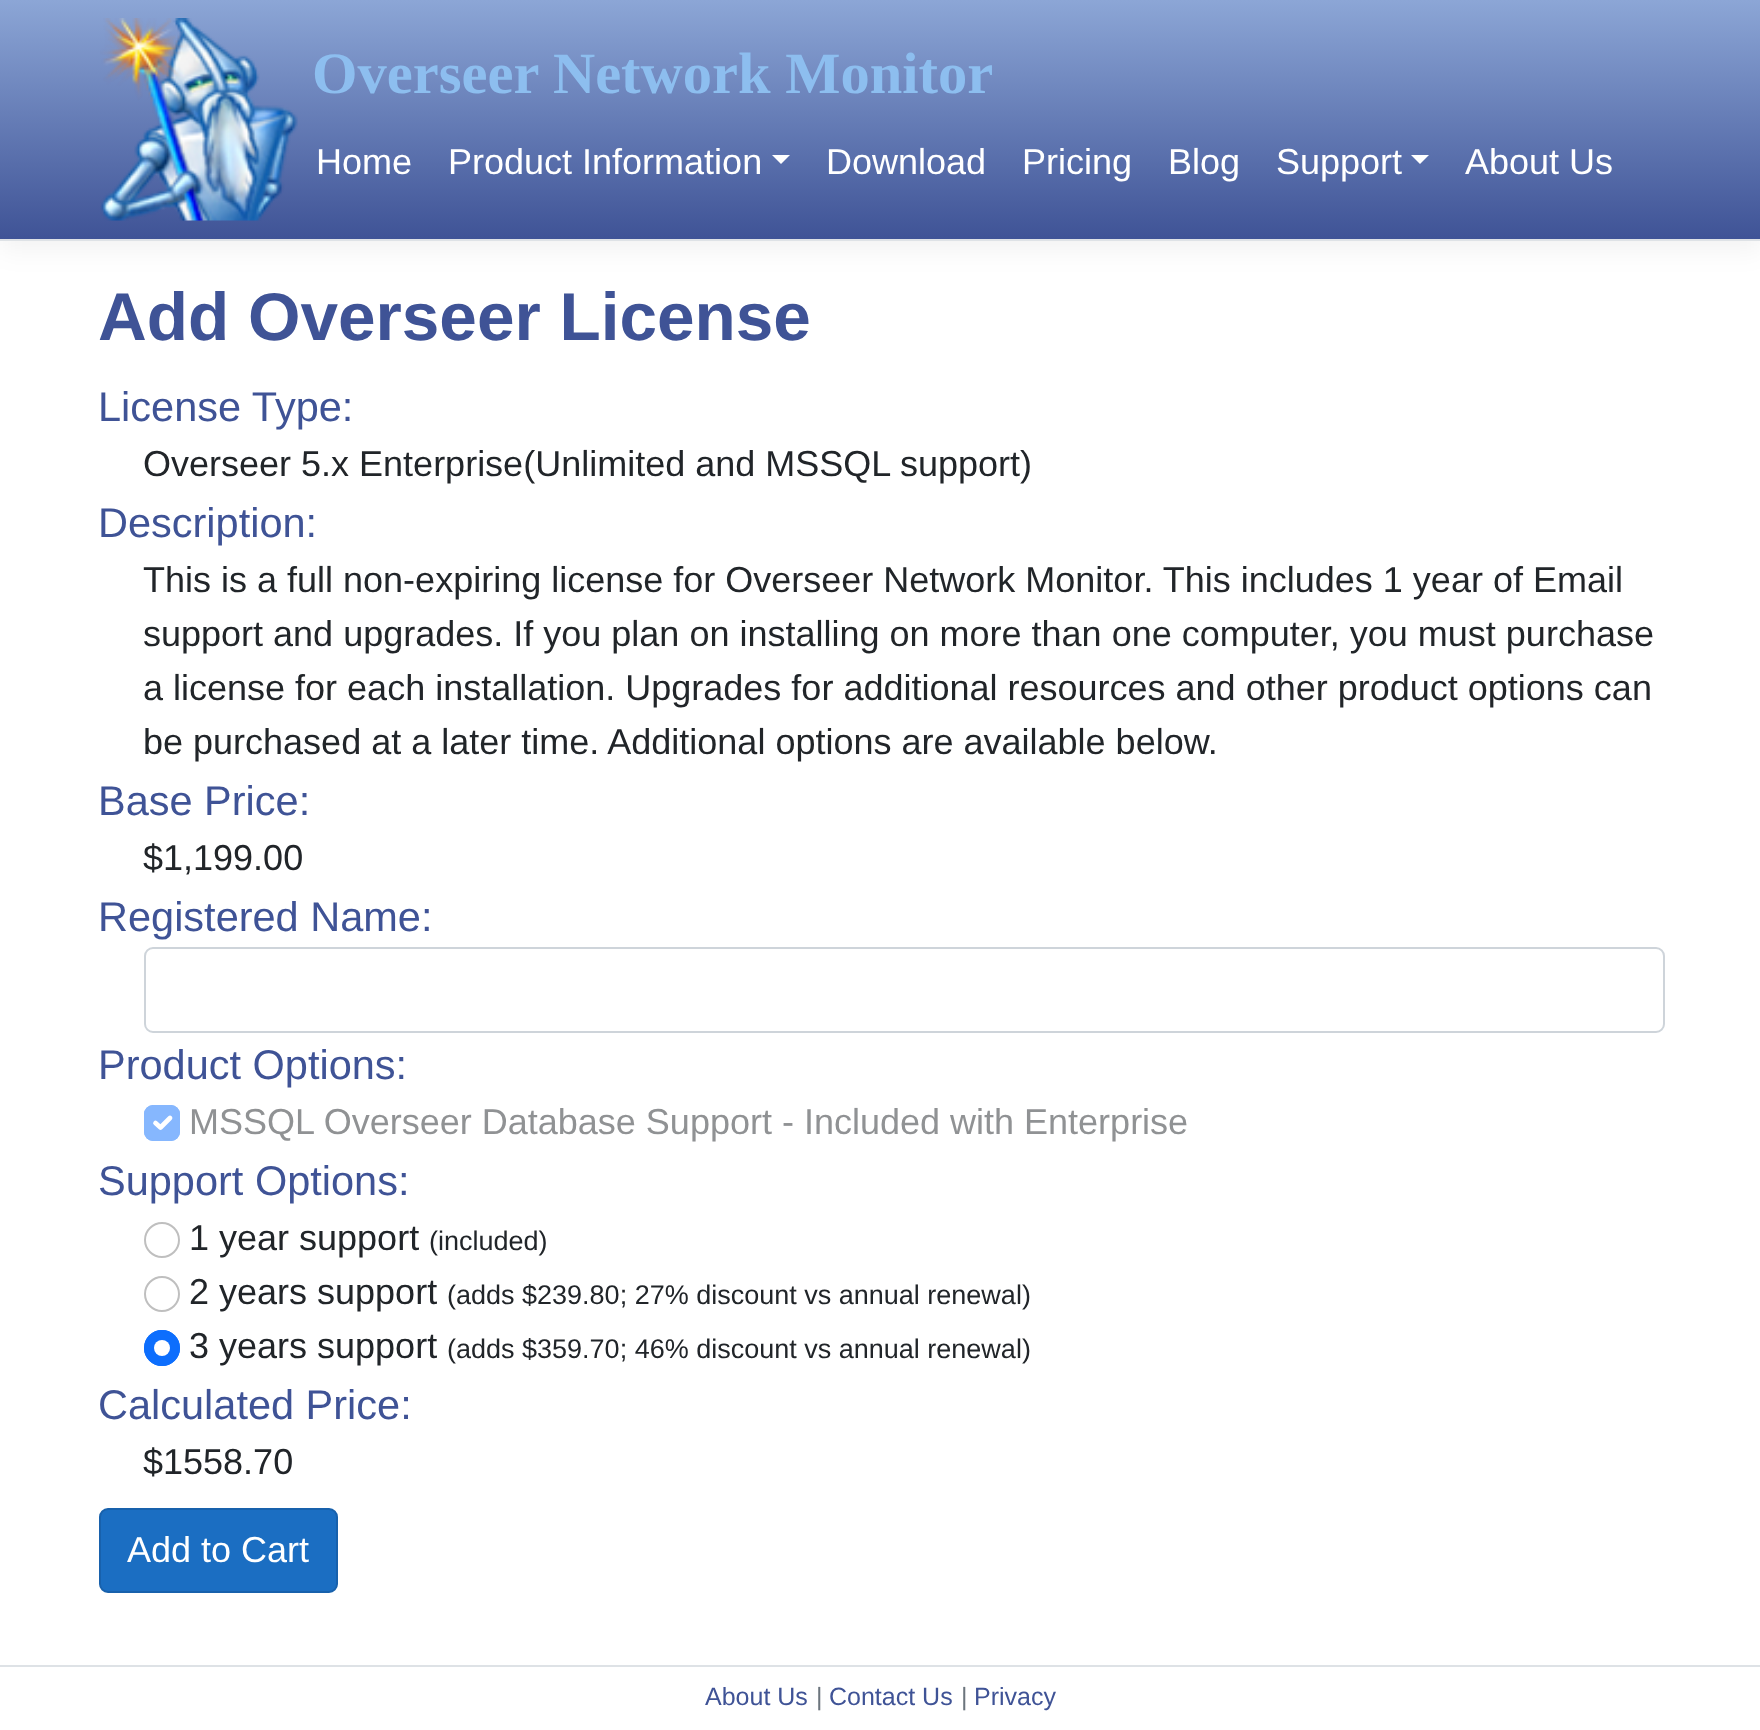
async function draw(canvas) {
  canvas.width = 1760;
  canvas.height = 1730;
  const ctx = canvas.getContext('2d');
  ctx.miterLimit = 4;
  ctx.fontKerning = 'normal';
  function label(s, x, y, font, color) {
    ctx.font = font;
    ctx.fillStyle = color;
    ctx.fillText(s, x, y);
  }
  function rect(x, y, w, h, color) {
    ctx.fillStyle = color;
    ctx.fillRect(x, y, w, h);
  }
  function roundedRect(x, y, w, h, r, color) {
    ctx.fillStyle = color;
    ctx.beginPath();
    ctx.roundRect(x, y, w, h, r);
    ctx.fill();
  }
  async function image(src, x, y, w, h) {
    const img = new Image();
    img.src = src;
    await img.decode();
    ctx.drawImage(img, x, y, w, h);
  }
  let gradient, path;

  rect(0, 0, 1760, 1730, '#fff');
  ctx.fillStyle = '#0000000d';
  ctx.filter = 'blur(13.5px)';
  ctx.beginPath();
  ctx.rect(0, 9, 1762, 241);
  ctx.fill();
  ctx.filter = 'none';
  gradient = ctx.createLinearGradient(881, 0, 881, 239);
  gradient.addColorStop(0, '#8ca6d6');
  gradient.addColorStop(1, '#3f5396');
  ctx.fillStyle = gradient;
  ctx.fillRect(0, 0, 1760, 239);
  rect(0, 239, 1760, 2, '#dee2e6');
  await image('assets/img1.png', 100, 18, 198, 203);
  label('Overseer Network Monitor', 312, 93, 'bold 58.5px Liberation Serif', '#8dbeef');
  label('Home', 316, 174, '36px Liberation Sans', '#fff');
  label('Product Information', 448, 174, '36px Liberation Sans', '#fff');
  path = new Path2D('M772 155H790L781 164Z');
  ctx.fill(path);
  label('Download', 826, 174, '36px Liberation Sans', '#fff');
  label('Pricing', 1022, 174, '36px Liberation Sans', '#fff');
  label('Blog', 1168, 174, '36px Liberation Sans', '#fff');
  label('Support', 1276, 174, '36px Liberation Sans', '#fff');
  path = new Path2D('M1411 155H1429L1420 164Z');
  ctx.fill(path);
  label('About Us', 1465, 174, '36px Liberation Sans', '#fff');
  label('Add Overseer License', 98, 340, 'bold 67.5px Liberation Sans', '#3f5396');
  label('License Type:', 98, 421, '41.5px Liberation Sans', '#3f5396');
  label('Overseer 5.x Enterprise(Unlimited and MSSQL support)', 143, 476, '36px Liberation Sans', '#212529');
  label('Description:', 98, 537, '41.5px Liberation Sans', '#3f5396');
  label('This is a full non-expiring license for Overseer Network Monitor. This includes 1 year of Email', 143, 592, '36px Liberation Sans', '#212529');
  label('support and upgrades. If you plan on installing on more than one computer, you must purchase', 143, 646, '36px Liberation Sans', '#212529');
  label('a license for each installation. Upgrades for additional resources and other product options can', 143, 700, '36px Liberation Sans', '#212529');
  label('be purchased at a later time. Additional options are available below.', 143, 754, '36px Liberation Sans', '#212529');
  label('Base Price:', 98, 815, '41.5px Liberation Sans', '#3f5396');
  label('$1,199.00', 143, 870, '36px Liberation Sans', '#212529');
  label('Registered Name:', 98, 931, '41.5px Liberation Sans', '#3f5396');
  ctx.beginPath();
  ctx.roundRect(145, 948, 1519, 84, 8);
  ctx.strokeStyle = '#ced4da';
  ctx.lineWidth = 2;
  ctx.stroke();
  label('Product Options:', 98, 1079, '41.5px Liberation Sans', '#3f5396');
  roundedRect(144, 1105, 36, 36, 9, '#86b7fe');
  path = new Path2D('M155.5 1123L160.5 1127.5L170 1118');
  ctx.strokeStyle = '#fff';
  ctx.lineWidth = 4.7;
  ctx.lineCap = 'round';
  ctx.lineJoin = 'round';
  ctx.stroke(path);
  ctx.beginPath();
  ctx.roundRect(145, 1106, 34, 34, 8);
  ctx.strokeStyle = '#86b7fe';
  ctx.lineWidth = 2;
  ctx.lineJoin = 'miter';
  ctx.stroke();
  label('MSSQL Overseer Database Support - Included with Enterprise', 189, 1134, '36px Liberation Sans', '#909294');
  label('Support Options:', 98, 1195, '41.5px Liberation Sans', '#3f5396');
  ctx.beginPath();
  ctx.arc(162, 1240, 17, 0, 2 * Math.PI);
  ctx.strokeStyle = '#bfbfbf';
  ctx.stroke();
  label('1 year support', 189, 1250, '36px Liberation Sans', '#212529');
  label('(included)', 429, 1250, '27px Liberation Sans', '#212529');
  ctx.beginPath();
  ctx.arc(162, 1294, 17, 0, 2 * Math.PI);
  ctx.stroke();
  label('2 years support', 189, 1304, '36px Liberation Sans', '#212529');
  label('(adds $239.80; 27% discount vs annual renewal)', 447, 1304, '27px Liberation Sans', '#212529');
  ctx.fillStyle = '#0d6efd';
  ctx.beginPath();
  ctx.arc(162, 1348, 18, 0, 2 * Math.PI);
  ctx.fill();
  ctx.fillStyle = '#fff';
  ctx.beginPath();
  ctx.arc(162, 1348, 8, 0, 2 * Math.PI);
  ctx.fill();
  ctx.beginPath();
  ctx.arc(162, 1348, 17, 0, 2 * Math.PI);
  ctx.strokeStyle = '#0d6efd';
  ctx.stroke();
  label('3 years support', 189, 1358, '36px Liberation Sans', '#212529');
  label('(adds $359.70; 46% discount vs annual renewal)', 447, 1358, '27px Liberation Sans', '#212529');
  label('Calculated Price:', 98, 1419, '41.5px Liberation Sans', '#3f5396');
  label('$1558.70', 143, 1474, '36px Liberation Sans', '#212529');
  ctx.fillStyle = '#1b6ec2';
  ctx.beginPath();
  ctx.roundRect(100, 1509, 237, 83, 8);
  ctx.fill();
  ctx.strokeStyle = '#1861ac';
  ctx.stroke();
  label('Add to Cart', 127, 1562, '36px Liberation Sans', '#fff');
  rect(0, 1665, 1760, 2, '#dee2e6');
  label('About Us', 705, 1705, '25px Liberation Sans', '#3f5396');
  label('|', 816, 1705, '25px Liberation Sans', '#6c757d');
  label('Contact Us', 829, 1705, '25px Liberation Sans', '#3f5396');
  label('|', 961, 1705, '25px Liberation Sans', '#6c757d');
  label('Privacy', 974, 1705, '25px Liberation Sans', '#3f5396');
}

draw(document.querySelector('canvas'));
